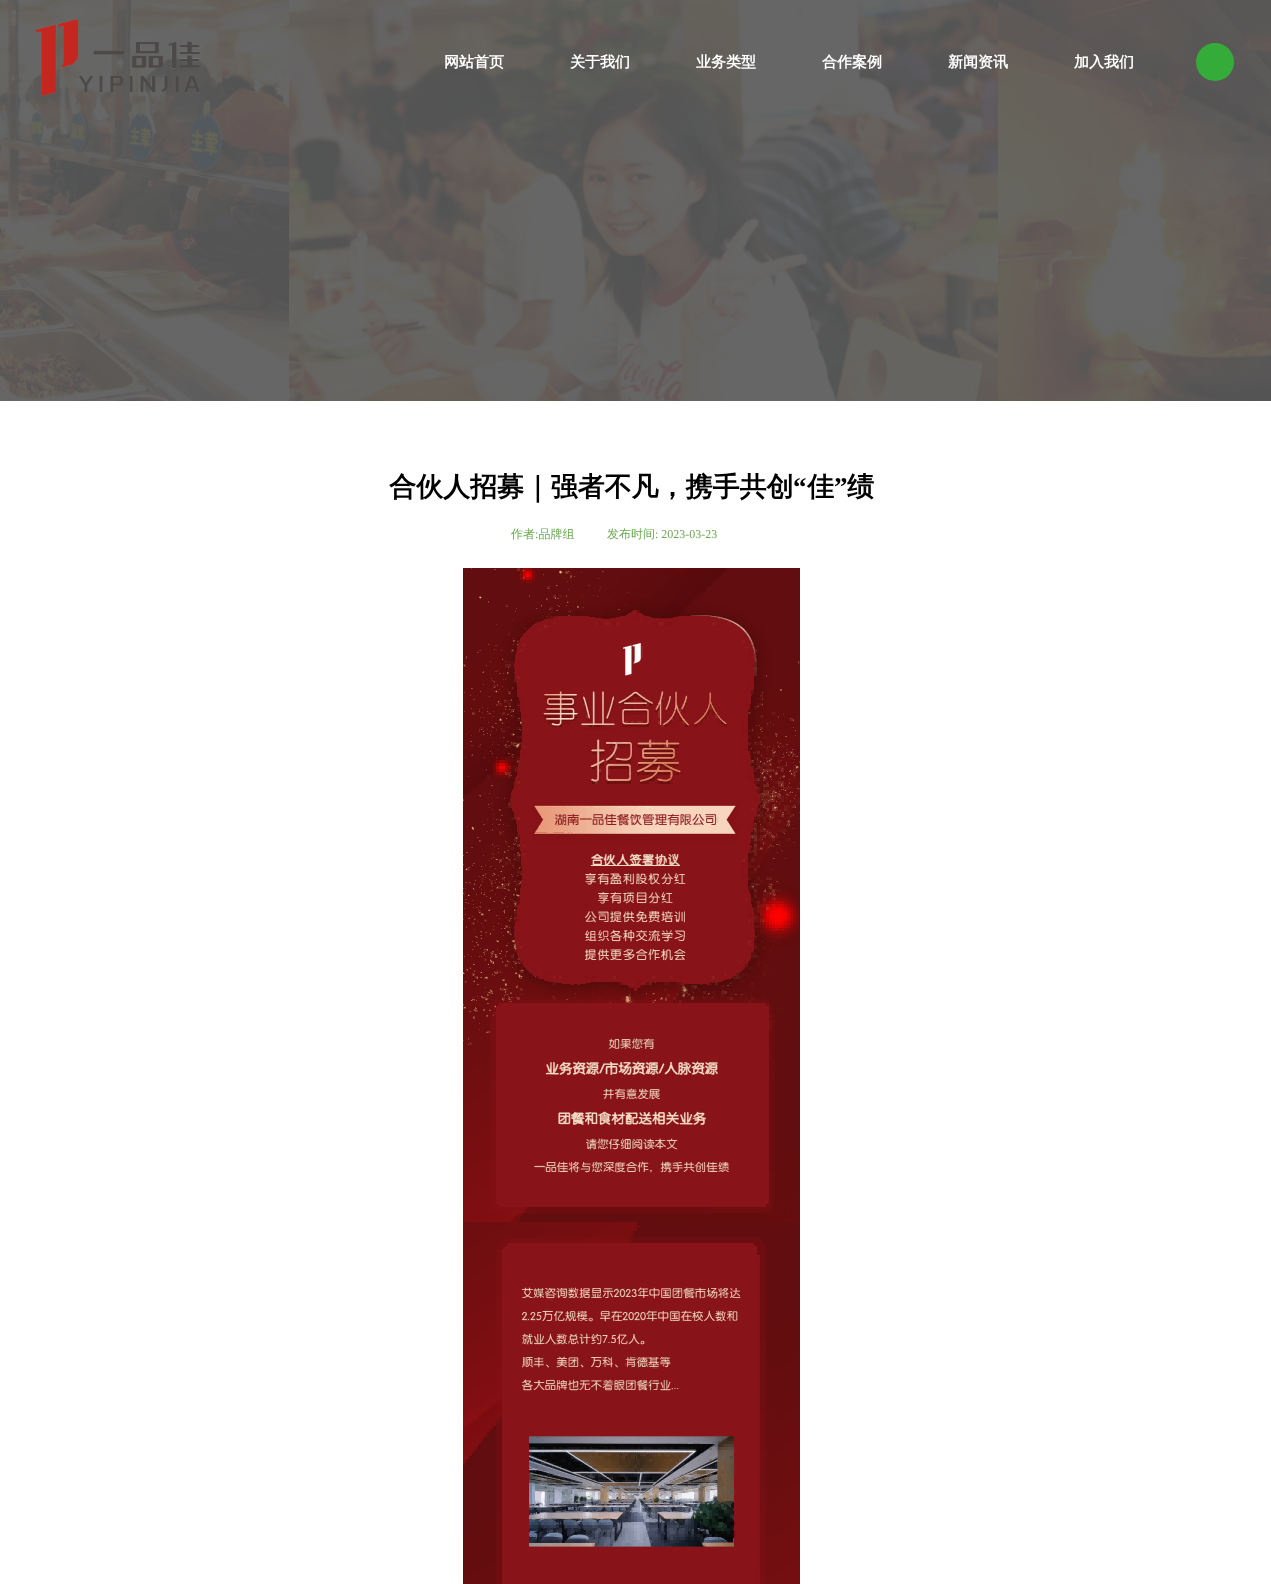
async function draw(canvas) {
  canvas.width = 1271;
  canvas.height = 1584;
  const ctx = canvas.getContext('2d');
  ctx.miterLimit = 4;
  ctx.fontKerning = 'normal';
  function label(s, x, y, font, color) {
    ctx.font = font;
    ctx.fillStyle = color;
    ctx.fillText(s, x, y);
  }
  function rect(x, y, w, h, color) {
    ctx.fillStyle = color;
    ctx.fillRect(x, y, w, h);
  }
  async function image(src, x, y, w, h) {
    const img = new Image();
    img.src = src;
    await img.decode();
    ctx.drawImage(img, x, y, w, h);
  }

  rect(0, 0, 1271, 1584, '#fff');
  rect(0, 0, 1271, 401, '#dfdfdf');
  await image('assets/img1.png', 0, 0, 1271, 401);
  await image('assets/img2.png', 36, 19, 164, 77);
  label('网站首页', 444, 67, 'bold 15px WenQuanYi Zen Hei', '#fff');
  label('关于我们', 570, 67, 'bold 15px WenQuanYi Zen Hei', '#fff');
  label('业务类型', 696, 67, 'bold 15px WenQuanYi Zen Hei', '#fff');
  label('合作案例', 822, 67, 'bold 15px WenQuanYi Zen Hei', '#fff');
  label('新闻资讯', 948, 67, 'bold 15px WenQuanYi Zen Hei', '#fff');
  label('加入我们', 1074, 67, 'bold 15px WenQuanYi Zen Hei', '#fff');
  ctx.fillStyle = '#35ac39';
  ctx.beginPath();
  ctx.arc(1215, 62, 19, 0, 2 * Math.PI);
  ctx.fill();
  label('合伙人招募｜强者不凡，携手共创', 389, 496, 'bold 27px WenQuanYi Zen Hei', '#000');
  label('“', 793, 496, 'bold 27px Liberation Serif', '#000');
  label('佳', 807, 496, 'bold 27px WenQuanYi Zen Hei', '#000');
  label('”', 834, 496, 'bold 27px Liberation Serif', '#000');
  label('绩', 847, 496, 'bold 27px WenQuanYi Zen Hei', '#000');
  label('作者 品牌组', 511, 538, '500 12px WenQuanYi Zen Hei', '#6aa84f');
  label(':', 535, 538, '12px Liberation Serif', '#6aa84f');
  label('发布时间', 607, 538, '500 12px WenQuanYi Zen Hei', '#6aa84f');
  label(': 2023-03-23', 655, 538, '12px Liberation Serif', '#6aa84f');
  await image('assets/img3.png', 463, 568, 337, 1016);
}

draw(document.querySelector('canvas'));
